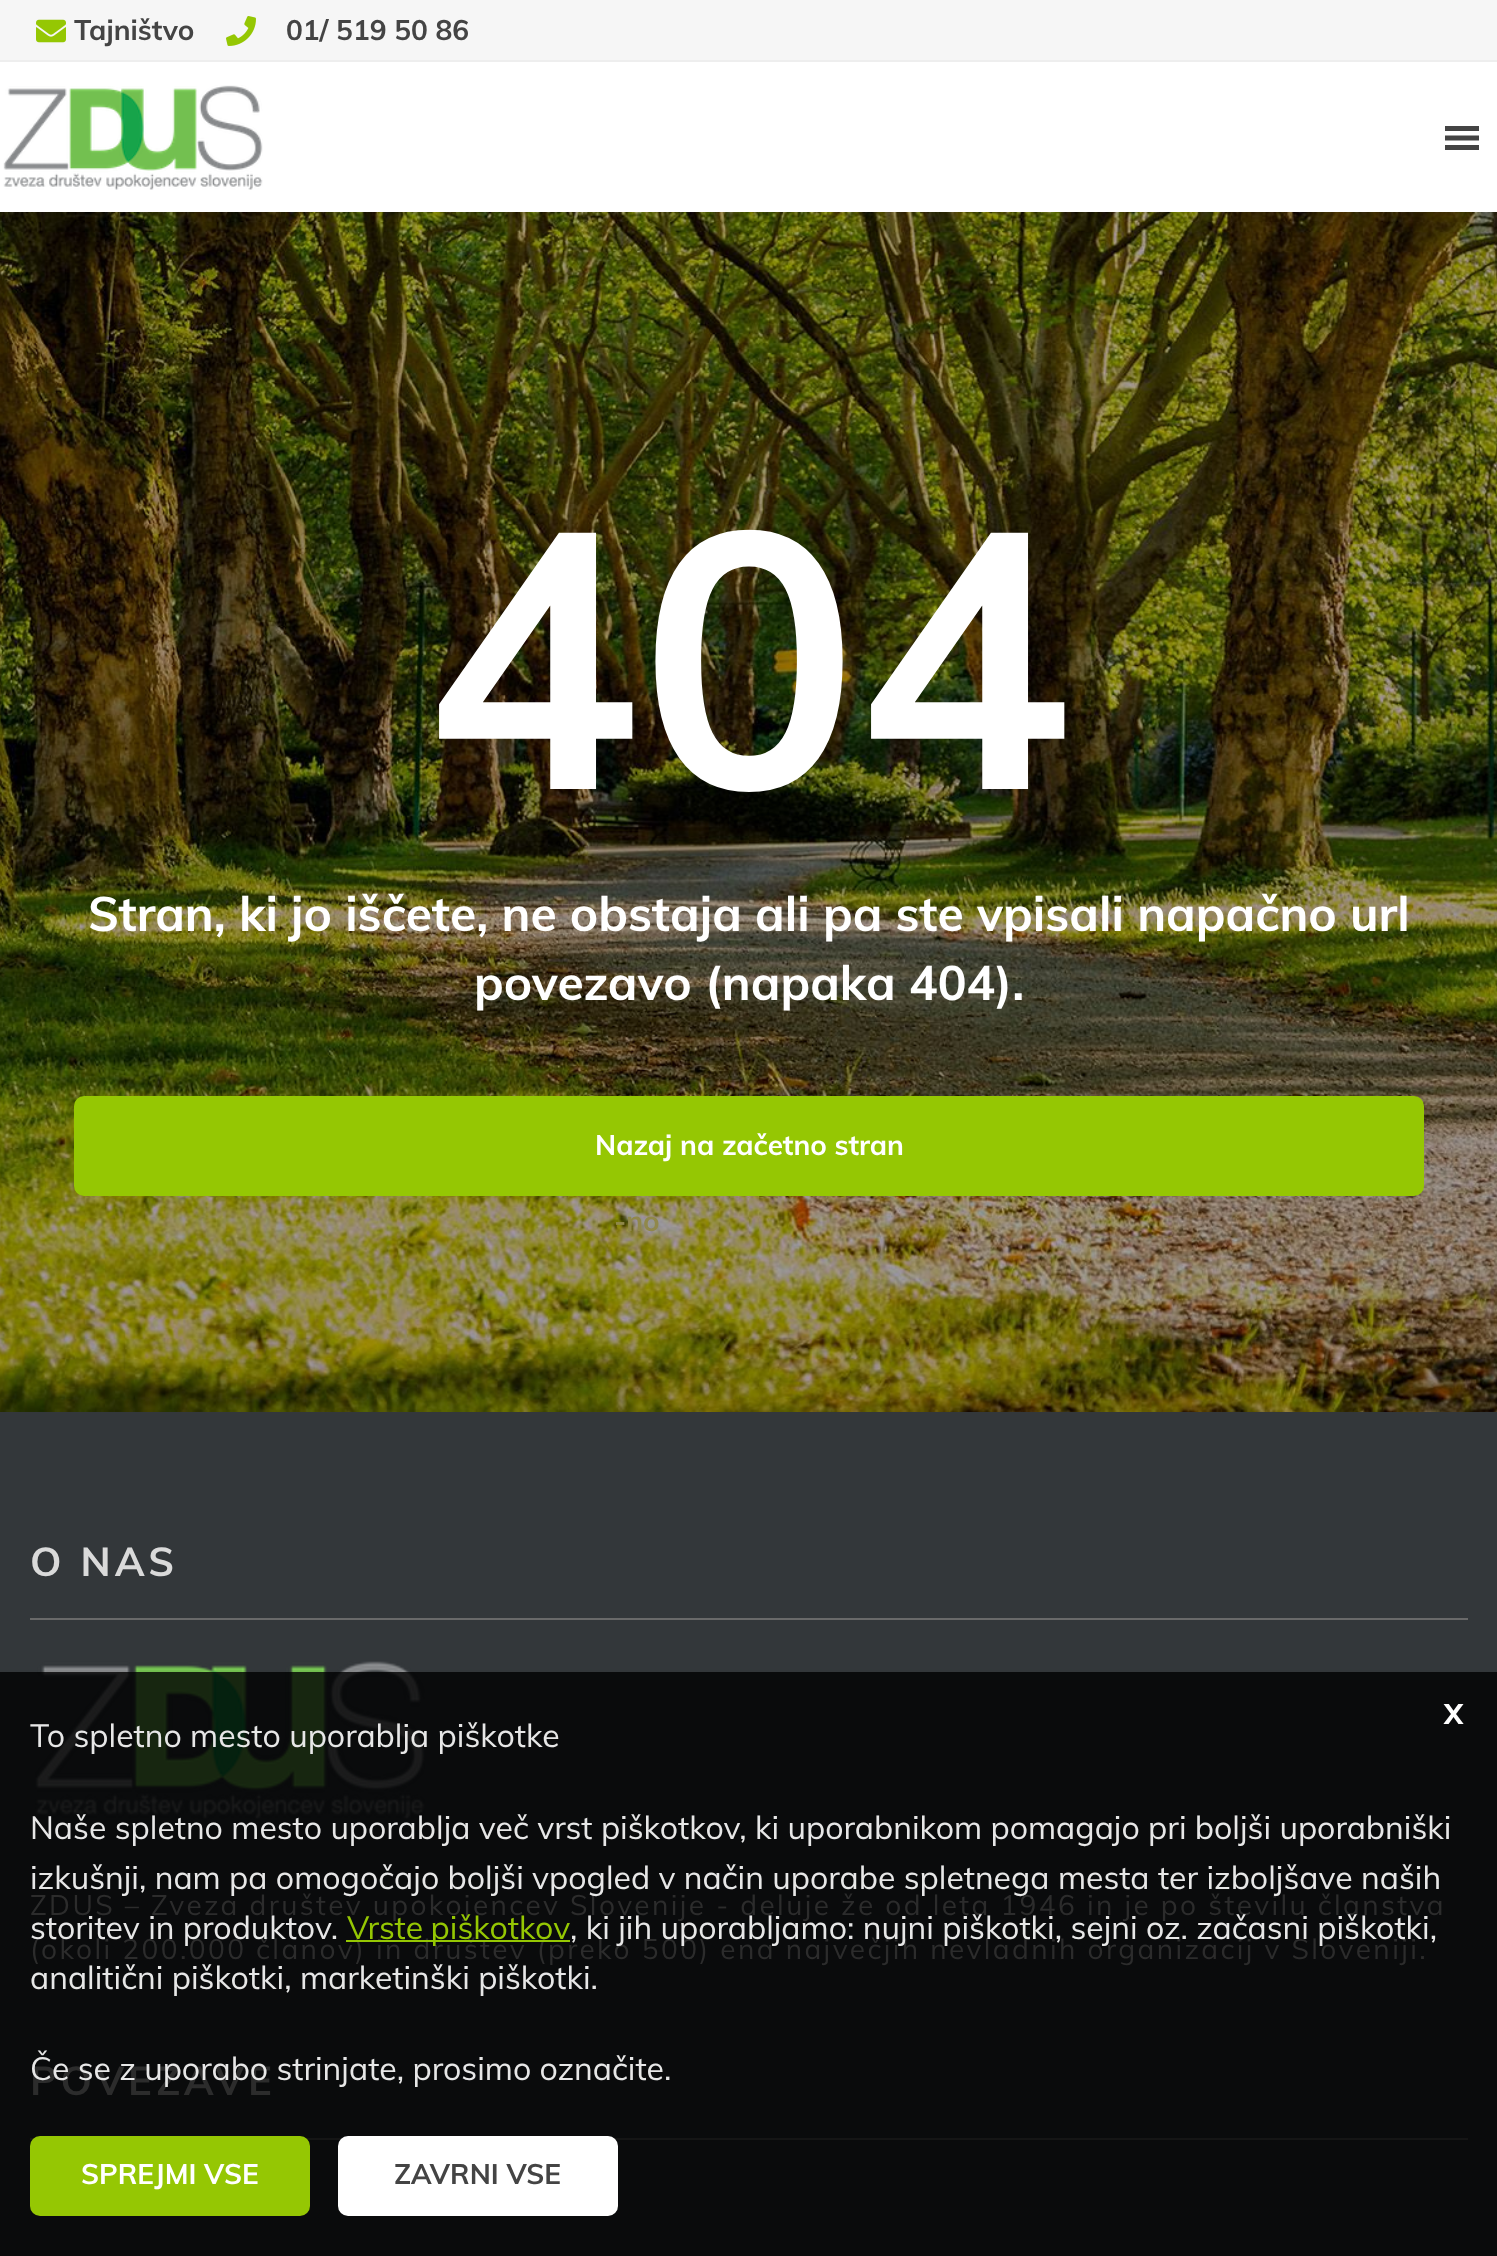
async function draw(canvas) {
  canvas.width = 1497;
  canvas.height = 2256;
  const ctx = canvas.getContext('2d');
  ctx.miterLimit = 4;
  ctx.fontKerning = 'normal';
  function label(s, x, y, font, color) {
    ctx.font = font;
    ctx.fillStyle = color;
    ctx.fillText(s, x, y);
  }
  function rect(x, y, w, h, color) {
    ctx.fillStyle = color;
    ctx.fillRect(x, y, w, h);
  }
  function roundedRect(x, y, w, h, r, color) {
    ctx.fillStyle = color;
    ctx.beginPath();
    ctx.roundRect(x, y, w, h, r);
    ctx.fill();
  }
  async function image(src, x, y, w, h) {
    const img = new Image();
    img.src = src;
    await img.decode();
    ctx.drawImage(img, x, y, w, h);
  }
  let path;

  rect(0, 0, 1497, 2256, '#f6f6f6');
  rect(0, 60, 1497, 2, '#eee');
  await image('assets/img1.png', 36, 19, 30, 24);
  label('Tajništvo', 74, 40, 'bold 28px Muli', '#444');
  await image('assets/img2.png', 226, 16, 30, 30);
  label('01/ 519 50 86', 286, 40, 'bold 28px Muli', '#444');
  rect(0, 62, 1497, 150, '#fff');
  await image('assets/img3.png', 3, 85, 260, 105);
  ctx.fillStyle = '#444';
  path = new Path2D('M1445 150H1479V145H1445ZM1445 126V131H1479V126ZM1445 140.5H1479V135.5H1445Z');
  ctx.fill(path);
  await image('assets/img4.png', 0, 212, 1497, 1200);
  label('404', 425, 789, 'bold 360px Muli', '#fff');
  label('Stran, ki jo iščete, ne obstaja ali pa ste vpisali napačno url', 88, 931, 'bold 48px Muli', '#fff');
  label('povezavo (napaka 404).', 474, 1000, 'bold 48px Muli', '#fff');
  roundedRect(74, 1096, 1350, 100, 10, '#95c703');
  label('Nazaj na začetno stran', 595, 1155, 'bold 28px Muli', '#fff');
  label('-no', 614, 1231, 'bold 28px Muli', '#90884b');
  rect(0, 1412, 1497, 260, '#33373a');
  rect(0, 1672, 1497, 584, '#0a0b0c');
  rect(30, 1618, 1438, 2, '#696969');
  ctx.letterSpacing = '4px';
  label('O NAS', 30, 1576, 'bold 40px Muli', '#dadada');
  await image('assets/img5.png', 35, 1661, 390, 158);
  ctx.letterSpacing = '2.4px';
  label('ZDUS – Zveza društev upokojencev Slovenije - deluje že od leta 1946 in je po številu članstva', 30, 1915, '28px Muli', '#2c2c2c');
  label('(okoli 200.000 članov) in društev (preko 500) ena največjih nevladnih organizacij v Sloveniji.', 30, 1959, '28px Muli', '#2c2c2c');
  rect(30, 2138, 1438, 2, '#151515');
  ctx.letterSpacing = '4px';
  label('POVEZAVE', 30, 2095, 'bold 40px Muli', '#2c2c2c');
  ctx.letterSpacing = '0px';
  label('X', 1444, 1724, '800 28px Muli', '#fff');
  label('To spletno mesto uporablja piškotke', 30, 1747, '32px Muli', '#e7e7e7');
  label('Naše spletno mesto uporablja več vrst piškotkov, ki uporabnikom pomagajo pri boljši uporabniški', 30, 1839, '32px Muli', '#e7e7e7');
  label('izkušnji, nam pa omogočajo boljši vpogled v način uporabe spletnega mesta ter izboljšave naših', 30, 1889, '32px Muli', '#e7e7e7');
  label('storitev in produktov.', 30, 1939, '32px Muli', '#e7e7e7');
  rect(346, 1940, 224, 2, '#95c703');
  ctx.wordSpacing = '-1px';
  label('Vrste piškotkov', 347, 1939, '32px Muli', '#95c703');
  ctx.wordSpacing = '0px';
  label(', ki jih uporabljamo: nujni piškotki, sejni oz. začasni piškotki,', 570, 1939, '32px Muli', '#e7e7e7');
  label('analitični piškotki, marketinški piškotki.', 30, 1989, '32px Muli', '#e7e7e7');
  label('Če se z uporabo strinjate, prosimo označite.', 30, 2080, '32px Muli', '#e7e7e7');
  roundedRect(30, 2136, 280, 80, 10, '#95c703');
  label('SPREJMI VSE', 81, 2184, 'bold 28px Muli', '#fff');
  roundedRect(338, 2136, 280, 80, 10, '#fff');
  label('ZAVRNI VSE', 394, 2184, 'bold 28px Muli', '#444');
}

draw(document.querySelector('canvas'));
